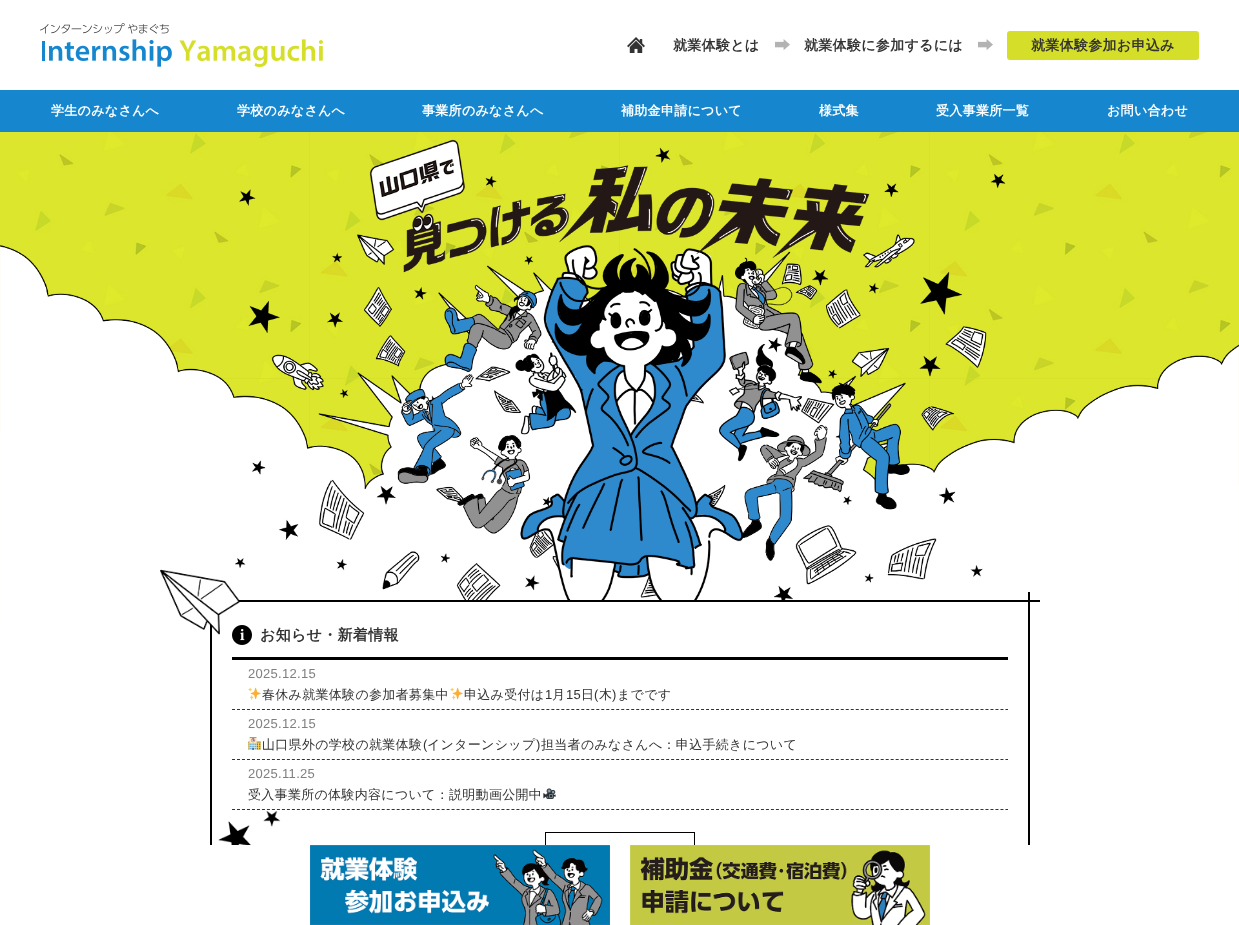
async function draw(canvas) {
  canvas.width = 1239;
  canvas.height = 925;
  const ctx = canvas.getContext('2d');
  ctx.miterLimit = 4;
  ctx.fontKerning = 'normal';
  function label(s, x, y, font, color) {
    ctx.font = font;
    ctx.fillStyle = color;
    ctx.fillText(s, x, y);
  }
  function rect(x, y, w, h, color) {
    ctx.fillStyle = color;
    ctx.fillRect(x, y, w, h);
  }
  function roundedRect(x, y, w, h, r, color) {
    ctx.fillStyle = color;
    ctx.beginPath();
    ctx.roundRect(x, y, w, h, r);
    ctx.fill();
  }
  async function image(src, x, y, w, h) {
    const img = new Image();
    img.src = src;
    await img.decode();
    ctx.drawImage(img, x, y, w, h);
  }
  let path;

  rect(0, 0, 1239, 925, '#fff');
  await image('assets/img1.png', 40, 23, 283, 44);
  await image('assets/img2.png', 627, 37, 18, 16);
  await image('assets/img3.png', 775, 39, 15, 11);
  ctx.letterSpacing = '0.3px';
  label('就業体験とは', 673, 50, 'bold 14px WenQuanYi Zen Hei', '#333');
  await image('assets/img3.png', 978, 39, 15, 11);
  label('就業体験に参加するには', 804, 50, 'bold 14px WenQuanYi Zen Hei', '#333');
  roundedRect(1007, 31, 192, 29, 3, '#d5de28');
  label('就業体験参加お申込み', 1031, 50, 'bold 14px WenQuanYi Zen Hei', '#333');
  rect(0, 90, 1239, 42, '#1687ce');
  label('学生のみなさんへ', 51, 115, 'bold 13px WenQuanYi Zen Hei', '#fff');
  label('学校のみなさんへ', 237, 115, 'bold 13px WenQuanYi Zen Hei', '#fff');
  label('事業所のみなさんへ', 422, 115, 'bold 13px WenQuanYi Zen Hei', '#fff');
  label('補助金申請について', 621, 115, 'bold 13px WenQuanYi Zen Hei', '#fff');
  label('様式集', 819, 115, 'bold 13px WenQuanYi Zen Hei', '#fff');
  label('受入事業所一覧', 936, 115, 'bold 13px WenQuanYi Zen Hei', '#fff');
  label('お問い合わせ', 1107, 115, 'bold 13px WenQuanYi Zen Hei', '#fff');
  await image('assets/img4.png', 0, 132, 1239, 493);
  await image('assets/img5.png', 0, 139, 1239, 486);
  rect(200, 600, 840, 2, '#000');
  rect(210, 592, 2, 253, '#000');
  await image('assets/img7.png', 232, 625, 20, 20);
  await image('assets/img6.png', 160, 569, 80, 66);
  rect(466, 602, 479, 23, '#fff');
  rect(232, 657, 776, 3, '#000');
  label('お知らせ・新着情報', 260, 640, 'bold 15px WenQuanYi Zen Hei', '#333');
  path = new Path2D('M232 709.5H1008');
  ctx.strokeStyle = '#333';
  ctx.setLineDash([3, 1.99]);
  ctx.stroke(path);
  label('2025.12.15', 248, 678, '13px Liberation Sans', '#808080');
  await image('assets/img8.png', 248, 687, 13, 13);
  label('春休み就業体験の参加者募集中', 262, 699, '500 13px WenQuanYi Zen Hei', '#333');
  await image('assets/img8.png', 450, 687, 13, 13);
  label('申込み受付は', 464, 699, '500 13px WenQuanYi Zen Hei', '#333');
  label('1', 545, 699, '13px Liberation Sans', '#333');
  label('月', 552, 699, '500 13px WenQuanYi Zen Hei', '#333');
  label('15', 566, 699, '13px Liberation Sans', '#333');
  label('日', 581, 699, '500 13px WenQuanYi Zen Hei', '#333');
  label('(', 594, 699, '13px Liberation Sans', '#333');
  label('木', 599, 699, '500 13px WenQuanYi Zen Hei', '#333');
  label(')', 612, 699, '13px Liberation Sans', '#333');
  label('までです', 617, 699, '500 13px WenQuanYi Zen Hei', '#333');
  path = new Path2D('M232 759.5H1008');
  ctx.stroke(path);
  label('2025.12.15', 248, 728, '13px Liberation Sans', '#808080');
  await image('assets/img9.png', 248, 737, 13, 13);
  label('山口県外の学校の就業体験', 262, 749, '500 13px WenQuanYi Zen Hei', '#333');
  label('(', 423, 749, '13px Liberation Sans', '#333');
  label('インターンシップ', 427, 749, '500 13px WenQuanYi Zen Hei', '#333');
  label(')', 536, 749, '13px Liberation Sans', '#333');
  label('担当者のみなさんへ：申込手続きについて', 541, 749, '500 13px WenQuanYi Zen Hei', '#333');
  path = new Path2D('M232 809.5H1008');
  ctx.stroke(path);
  label('2025.11.25', 248, 778, '13px Liberation Sans', '#808080');
  label('受入事業所の体験内容について：説明動画公開中', 248, 799, '500 13px WenQuanYi Zen Hei', '#333');
  await image('assets/img10.png', 543, 788, 13, 11);
  ctx.strokeStyle = '#000';
  ctx.setLineDash([]);
  ctx.strokeRect(545.5, 832.5, 149, 46);
  rect(1028, 592, 2, 253, '#000');
  await image('assets/img11.png', 218, 811, 63, 34);
  rect(545, 845, 150, 34, '#fff');
  await image('assets/img12.png', 310, 845, 300, 80);
  await image('assets/img13.png', 630, 845, 300, 80);
}

draw(document.querySelector('canvas'));
